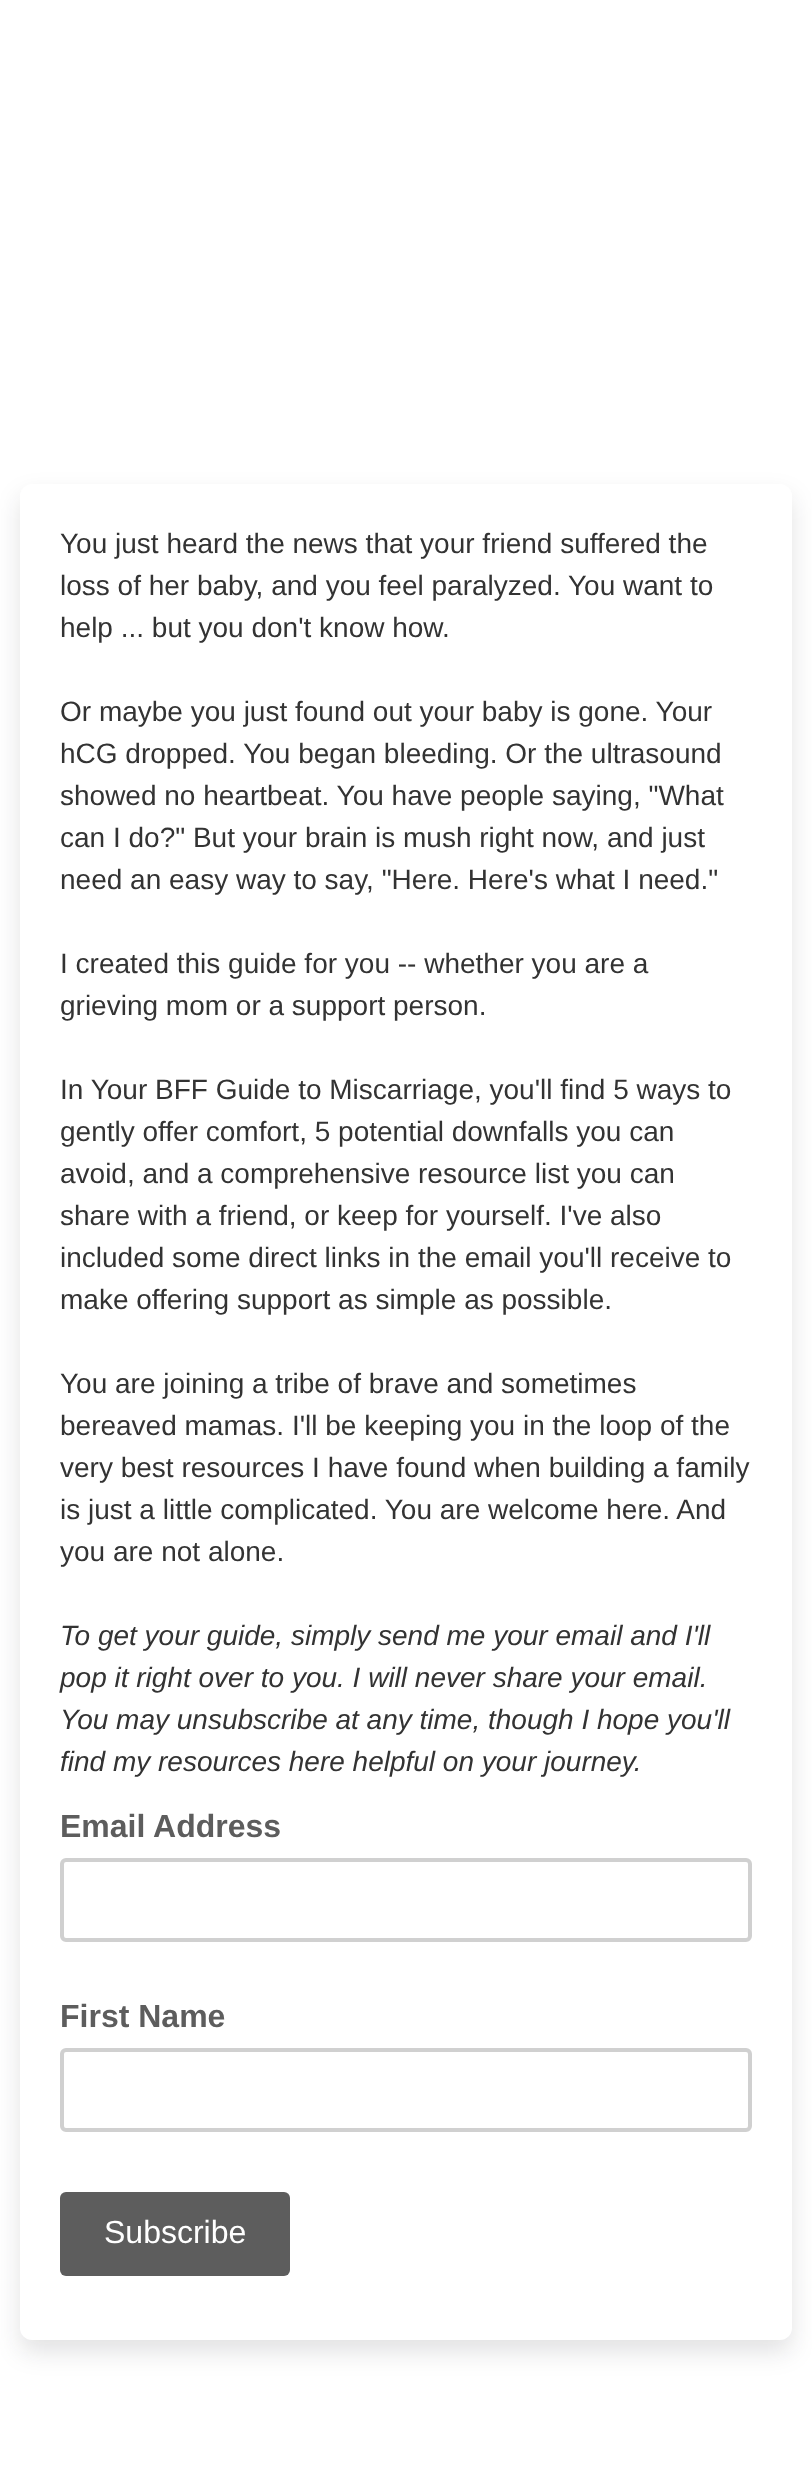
async function draw(canvas) {
  canvas.width = 812;
  canvas.height = 2470;
  const ctx = canvas.getContext('2d');
  ctx.miterLimit = 4;
  ctx.fontKerning = 'normal';
  function label(s, x, y, font, color) {
    ctx.font = font;
    ctx.fillStyle = color;
    ctx.fillText(s, x, y);
  }
  function rect(x, y, w, h, color) {
    ctx.fillStyle = color;
    ctx.fillRect(x, y, w, h);
  }
  function roundedRect(x, y, w, h, r, color) {
    ctx.fillStyle = color;
    ctx.beginPath();
    ctx.roundRect(x, y, w, h, r);
    ctx.fill();
  }

  rect(0, 0, 812, 2470, '#fff');
  ctx.fillStyle = '#0d12161f';
  ctx.filter = 'blur(12px)';
  ctx.beginPath();
  ctx.roundRect(20, 496, 772, 1856, 12);
  ctx.fill();
  ctx.filter = 'none';
  roundedRect(20, 484, 772, 1856, 12, '#fff');
  label('You just heard the news that your friend suffered the', 60, 553, '28px Liberation Sans', '#333');
  label('loss of her baby, and you feel paralyzed. You want to', 60, 595, '28px Liberation Sans', '#333');
  label('help ... but you don\'t know how.', 60, 637, '28px Liberation Sans', '#333');
  label('Or maybe you just found out your baby is gone. Your', 60, 721, '28px Liberation Sans', '#333');
  label('hCG dropped. You began bleeding. Or the ultrasound', 60, 763, '28px Liberation Sans', '#333');
  label('showed no heartbeat. You have people saying, "What', 60, 805, '28px Liberation Sans', '#333');
  label('can I do?" But your brain is mush right now, and just', 60, 847, '28px Liberation Sans', '#333');
  label('need an easy way to say, "Here. Here\'s what I need."', 60, 889, '28px Liberation Sans', '#333');
  label('I created this guide for you -- whether you are a', 60, 973, '28px Liberation Sans', '#333');
  label('grieving mom or a support person.', 60, 1015, '28px Liberation Sans', '#333');
  label('In Your BFF Guide to Miscarriage, you\'ll find 5 ways to', 60, 1099, '28px Liberation Sans', '#333');
  label('gently offer comfort, 5 potential downfalls you can', 60, 1141, '28px Liberation Sans', '#333');
  label('avoid, and a comprehensive resource list you can', 60, 1183, '28px Liberation Sans', '#333');
  label('share with a friend, or keep for yourself. I\'ve also', 60, 1225, '28px Liberation Sans', '#333');
  label('included some direct links in the email you\'ll receive to', 60, 1267, '28px Liberation Sans', '#333');
  label('make offering support as simple as possible.', 60, 1309, '28px Liberation Sans', '#333');
  label('You are joining a tribe of brave and sometimes', 60, 1393, '28px Liberation Sans', '#333');
  label('bereaved mamas. I\'ll be keeping you in the loop of the', 60, 1435, '28px Liberation Sans', '#333');
  label('very best resources I have found when building a family', 60, 1477, '28px Liberation Sans', '#333');
  label('is just a little complicated. You are welcome here. And', 60, 1519, '28px Liberation Sans', '#333');
  label('you are not alone.', 60, 1561, '28px Liberation Sans', '#333');
  label('To get your guide, simply send me your email and I\'ll', 60, 1645, 'italic 28px Liberation Sans', '#333');
  label('pop it right over to you. I will never share your email.', 60, 1687, 'italic 28px Liberation Sans', '#333');
  label('You may unsubscribe at any time, though I hope you\'ll', 60, 1729, 'italic 28px Liberation Sans', '#333');
  label('find my resources here helpful on your journey.', 60, 1771, 'italic 28px Liberation Sans', '#333');
  label('Email Address', 60, 1837, 'bold 32px Liberation Sans', '#5d5d5d');
  ctx.beginPath();
  ctx.roundRect(62, 1860, 688, 80, 4);
  ctx.strokeStyle = '#d0d0d0';
  ctx.lineWidth = 4;
  ctx.stroke();
  label('First Name', 60, 2027, 'bold 32px Liberation Sans', '#5d5d5d');
  ctx.beginPath();
  ctx.roundRect(62, 2050, 688, 80, 4);
  ctx.stroke();
  roundedRect(60, 2192, 230, 84, 6, '#5d5d5d');
  label('Subscribe', 104, 2243, '32px Liberation Sans', '#fff');
}

draw(document.querySelector('canvas'));
